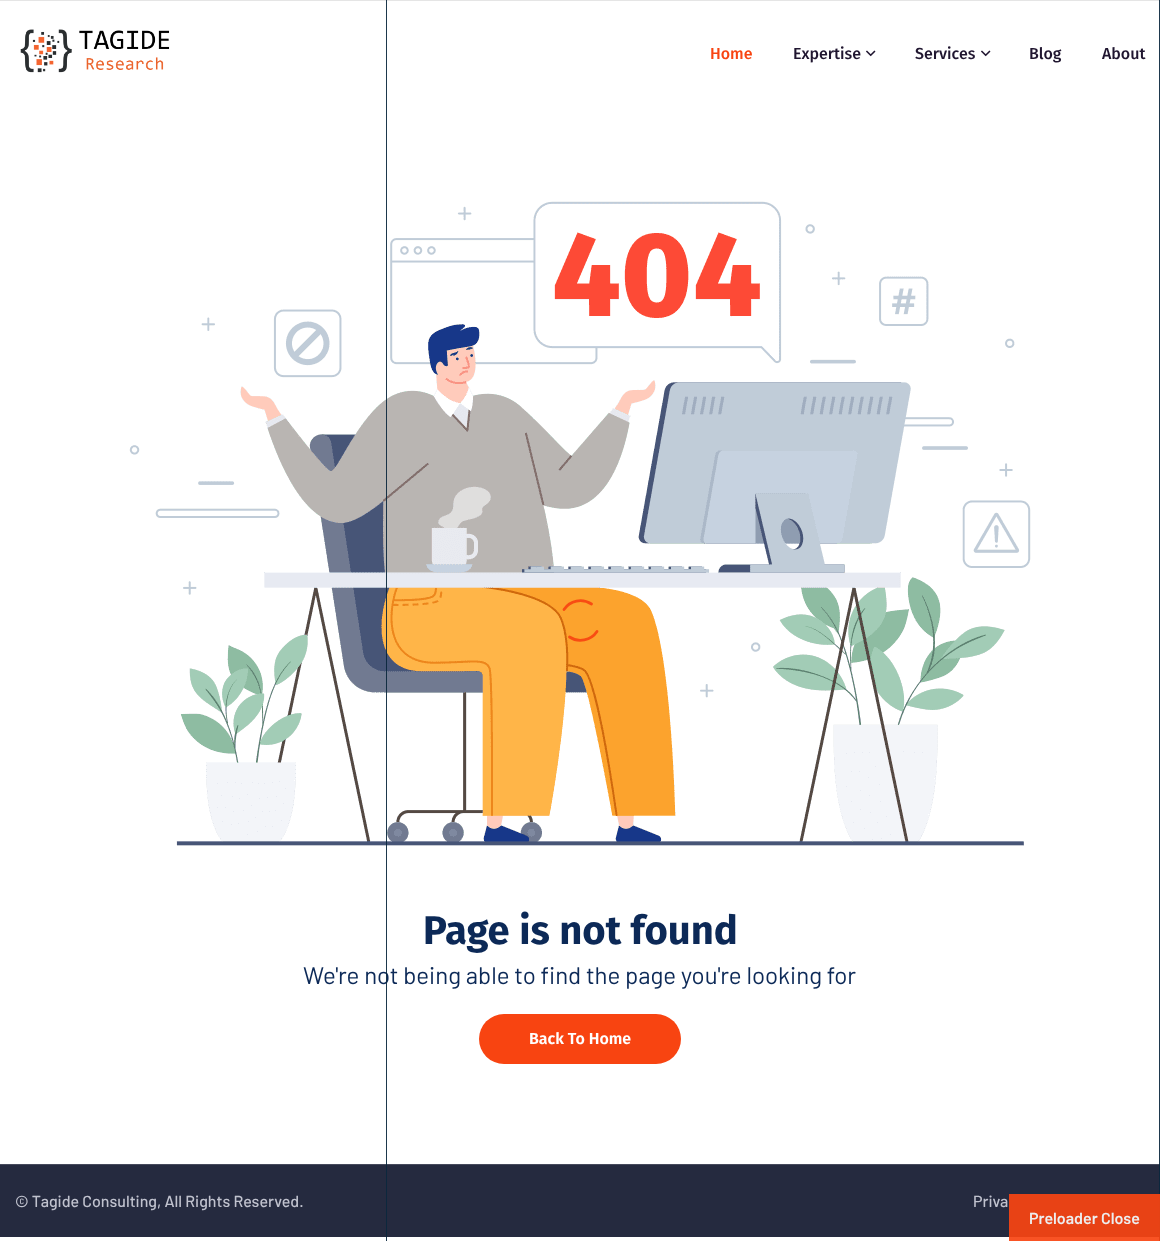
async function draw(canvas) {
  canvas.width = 1160;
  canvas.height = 1241;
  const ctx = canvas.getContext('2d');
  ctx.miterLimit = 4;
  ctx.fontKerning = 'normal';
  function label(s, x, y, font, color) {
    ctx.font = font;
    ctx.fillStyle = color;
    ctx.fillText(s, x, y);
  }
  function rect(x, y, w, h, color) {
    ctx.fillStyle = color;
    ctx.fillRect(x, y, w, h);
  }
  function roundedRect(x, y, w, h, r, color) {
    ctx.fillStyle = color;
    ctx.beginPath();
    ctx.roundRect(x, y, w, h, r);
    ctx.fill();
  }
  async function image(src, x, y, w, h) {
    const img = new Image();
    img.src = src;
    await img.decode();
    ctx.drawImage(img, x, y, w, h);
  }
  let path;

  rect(0, 0, 1160, 1241, '#fff');
  rect(1159, 0, 1, 1241, '#1e384d');
  rect(0, 0, 1160, 1, '#e5e5e5');
  rect(1159, 0, 1, 1, '#1c364a');
  await image('assets/img1.png', 20, 29, 150, 44);
  label('Home', 710, 59, '500 16px Fira Sans', '#f84411');
  label('Expertise', 793, 59, '500 16px Fira Sans', '#201630');
  await image('assets/img2.png', 866, 50, 10, 7);
  label('Services', 915, 59, '500 16px Fira Sans', '#201630');
  await image('assets/img2.png', 981, 50, 10, 7);
  label('Blog', 1029, 59, '500 16px Fira Sans', '#201630');
  label('About', 1102, 59, '500 16px Fira Sans', '#201630');
  await image('assets/img3.png', 129, 201, 902, 645);
  label('Page is not found', 423, 944, 'bold 40px Fira Sans', '#0c2957');
  label('We\'re not being able to find the page you\'re looking for', 303, 984, '24px Barlow', '#0c2957');
  roundedRect(479, 1014, 202, 50, 25, '#f84411');
  label('Back To Home', 529, 1044, '600 16px Fira Sans', '#fff');
  rect(0, 1165, 1159, 72, '#252a3f');
  rect(1159, 1164, 1, 73, '#0c273d');
  rect(0, 1164, 1160, 1, '#464a5c');
  rect(1159, 1164, 1, 1, '#0f2a3f');
  label('© Tagide Consulting, All Rights Reserved.', 15, 1207, '500 16px Barlow', '#c0c2ce');
  label('Priva', 973, 1207, '500 16px Barlow', '#c0c2ce');
  rect(386, 0, 1, 1241, '#0a273deb');
  path = new Path2D('M564 609.5C570 600.5 582 598 591.5 604M597 631.5C591 640.5 578.5 643 569.5 637');
  ctx.strokeStyle = '#f84c13';
  ctx.lineWidth = 2.8;
  ctx.lineCap = 'round';
  ctx.stroke(path);
  rect(1009, 1194, 151, 47, '#f84411eb');
  label('Preloader Close', 1029, 1224, '600 16px Barlow', '#edeeef');
}

draw(document.querySelector('canvas'));
